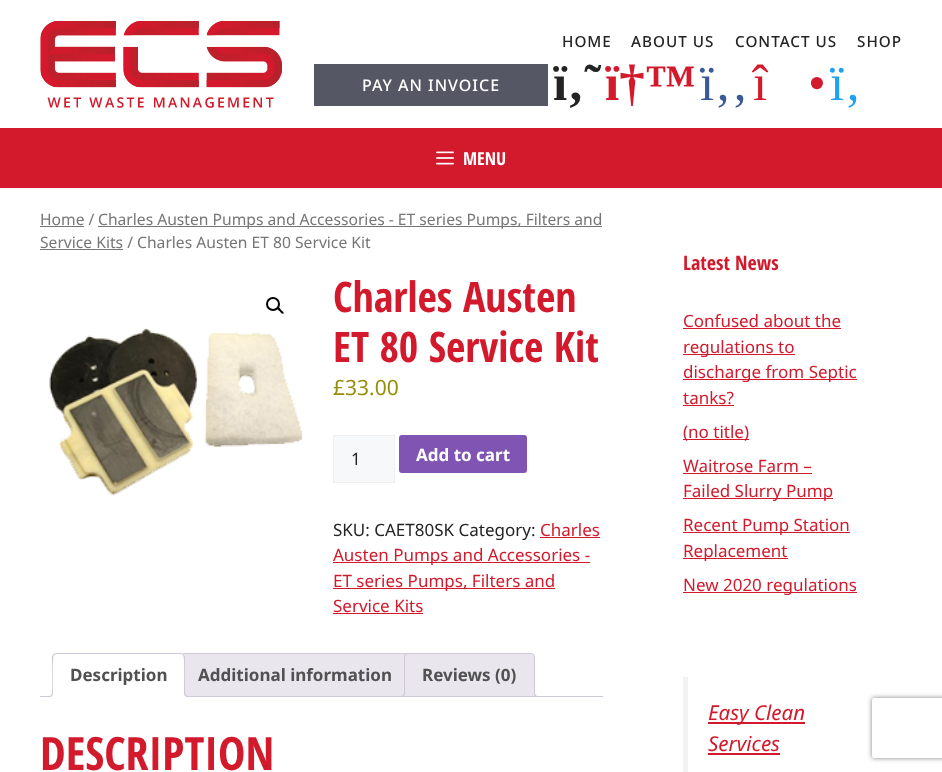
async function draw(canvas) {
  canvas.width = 942;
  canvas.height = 772;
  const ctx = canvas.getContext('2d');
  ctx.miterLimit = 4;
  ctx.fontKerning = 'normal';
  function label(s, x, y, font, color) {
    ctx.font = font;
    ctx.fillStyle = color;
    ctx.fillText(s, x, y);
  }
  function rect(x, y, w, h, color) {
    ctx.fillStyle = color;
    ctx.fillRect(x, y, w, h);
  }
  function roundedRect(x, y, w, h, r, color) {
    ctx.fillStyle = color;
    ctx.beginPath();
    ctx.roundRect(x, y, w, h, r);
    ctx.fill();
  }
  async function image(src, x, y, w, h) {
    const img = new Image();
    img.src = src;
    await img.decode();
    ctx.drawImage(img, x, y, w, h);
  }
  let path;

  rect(0, 0, 942, 772, '#fff');
  await image('assets/img1.png', 40, 21, 242, 87);
  ctx.letterSpacing = '1px';
  label('HOME', 562, 47, '500 15.25px Noto Sans', '#242424');
  label('ABOUT US', 631, 47, '500 15.25px Noto Sans', '#242424');
  label('CONTACT US', 735, 47, '500 15.25px Noto Sans', '#242424');
  label('SHOP', 857, 47, '500 15.25px Noto Sans', '#242424');
  rect(314, 64, 234, 42, '#555764');
  label('PAY AN INVOICE', 362, 91, '500 16px Noto Sans', '#fff');
  ctx.letterSpacing = '0px';
  label('ï‚˜', 553, 100, 'bold 51px Liberation Serif', '#242424');
  label('ï†™', 605, 100, 'bold 51px Liberation Serif', '#d21a2c');
  label('ï‚‚', 700, 100, '51px Liberation Serif', '#3b5998');
  label('î', 753, 100, '51px Liberation Serif', '#d21a2c');
  label('•', 808, 100, '51px Liberation Serif', '#d21a2c');
  label('ï‚', 830, 100, '51px Liberation Serif', '#1da1f2');
  rect(0, 128, 942, 60, '#d21a2c');
  await image('assets/img2.png', 436, 151, 18, 14);
  label('MENU', 463, 165, 'bold 18px Open Sans Condensed', '#fff');
  label('Home /', 40, 225, '15.65px Noto Sans', '#767676');
  rect(40, 226, 44, 1, '#767676');
  rect(98, 226, 504, 1, '#767676');
  label('Charles Austen Pumps and Accessories - ET series Pumps, Filters and', 98, 225, '15.65px Noto Sans', '#767676');
  label('Service Kits / Charles Austen ET 80 Service Kit', 40, 248, '15.65px Noto Sans', '#767676');
  rect(40, 249, 83, 1, '#767676');
  ctx.beginPath();
  ctx.arc(273, 304, 6, 0, 2 * Math.PI);
  ctx.strokeStyle = '#000';
  ctx.lineWidth = 2;
  ctx.stroke();
  ctx.fillStyle = '#000';
  path = new Path2D('M277.5 307.5C279 306.5 280.5 309 281 310C281.5 310.5 284.5 312 283.5 313.5C282 314.5 280.5 312 279.5 311C279 310.5 276.5 309 277.5 307.5Z');
  ctx.fill(path);
  await image('assets/img3.png', 49, 328, 254, 168);
  label('Charles Austen', 333, 312, 'bold 42px Open Sans Condensed', '#d21a2c');
  label('ET 80 Service Kit', 333, 362, 'bold 42px Open Sans Condensed', '#d21a2c');
  label('£33.00', 333, 395, '21px Noto Sans', '#958e09');
  ctx.fillStyle = '#f7f8f9';
  ctx.beginPath();
  ctx.rect(333.5, 435.5, 61, 47);
  ctx.fill();
  ctx.strokeStyle = '#f0f0f0';
  ctx.lineWidth = 1;
  ctx.stroke();
  label('1', 351, 465, '17px Noto Sans', '#242424');
  roundedRect(399, 435, 128, 38, 3, '#7f54b3');
  label('Add to cart', 416, 461, 'bold 17px Noto Sans', '#fff');
  label('SKU: CAET80SK Category:', 333, 536, '17px Noto Sans', '#242424');
  label('Charles', 540, 536, '17px Noto Sans', '#d21a2c');
  rect(540, 537, 60, 1, '#d21a2c');
  rect(333, 562, 257, 1, '#d21a2c');
  label('Austen Pumps and Accessories -', 333, 561, '17px Noto Sans', '#d21a2c');
  rect(333, 588, 222, 1, '#d21a2c');
  label('ET series Pumps, Filters and', 333, 587, '17px Noto Sans', '#d21a2c');
  label('Service Kits', 333, 612, '17px Noto Sans', '#d21a2c');
  rect(333, 613, 90, 1, '#d21a2c');
  ctx.fillStyle = '#e9e6ed';
  ctx.beginPath();
  ctx.roundRect(180.5, 653.5, 229, 43, [3.5, 3.5, 0, 0]);
  ctx.fill();
  ctx.strokeStyle = '#cfc8d8';
  ctx.stroke();
  ctx.beginPath();
  ctx.roundRect(404.5, 653.5, 130, 43, [3.5, 3.5, 0, 0]);
  ctx.fill();
  ctx.stroke();
  ctx.save();
  ctx.beginPath();
  ctx.rect(40, 653, 563, 44);
  ctx.clip();
  path = new Path2D('M402 697V699C405.5 699 407 697.5 407 694H405C404.5 695.5 403.5 696.5 402 697Z');
  ctx.fill(path);
  ctx.restore();
  ctx.fillStyle = '#cfc8d8';
  path = new Path2D('M400 692H405C405 695.5 403.5 697 400 697ZM400 692H404C404 695 403 696 400 696Z');
  ctx.fill(path, 'evenodd');
  ctx.save();
  ctx.beginPath();
  ctx.rect(40, 653, 563, 44);
  ctx.clip();
  ctx.fillStyle = '#e9e6ed';
  path = new Path2D('M532 694C532 697.5 533.5 699 537 699V697C535.5 696.5 534.5 695.5 534 694Z');
  ctx.fill(path);
  ctx.restore();
  path = new Path2D('M534 692H539V697C536.5 697 534 696 534 693ZM535 692H539V696C537 696 535 695.5 535 693Z');
  ctx.fill(path, 'evenodd');
  rect(40, 696, 563, 1, '#cfc8d8');
  ctx.fillStyle = '#fff';
  ctx.beginPath();
  ctx.roundRect(52, 653, 133, 44, [4, 4, 0, 0]);
  ctx.fill();
  ctx.fillStyle = '#cfc8d8';
  path = new Path2D('M56 653L53 654L54 655L56 654H181L183 655L184 654L181 653Z');
  ctx.fill(path);
  path = new Path2D('M185 697V657C185 656 184 655 184 654L183 655C185 657 184 691 184 696Z');
  ctx.fill(path);
  ctx.fillStyle = '#fff';
  path = new Path2D('M185 697L184 696H53L52 697Z');
  ctx.fill(path);
  ctx.fillStyle = '#cfc8d8';
  path = new Path2D('M52 697L53 696C53 691 52 657 54 655L53 654L52 657Z');
  ctx.fill(path);
  label('Description', 70, 681, 'bold 17px Noto Sans', '#515151');
  ctx.save();
  ctx.beginPath();
  ctx.rect(40, 653, 563, 44);
  ctx.clip();
  ctx.fillStyle = '#fff';
  path = new Path2D('M50 697V699C53.5 699 55 697.5 55 694H53C52.5 695.5 51.5 696.5 50 697Z');
  ctx.fill(path);
  ctx.restore();
  ctx.fillStyle = '#cfc8d8';
  path = new Path2D('M48 692H53C53 695.5 51.5 697 48 697ZM48 692H52C52 695 51 696 48 696Z');
  ctx.fill(path, 'evenodd');
  ctx.save();
  ctx.beginPath();
  ctx.rect(40, 653, 563, 44);
  ctx.clip();
  ctx.fillStyle = '#fff';
  path = new Path2D('M182 694C182 697.5 183.5 699 187 699V697C185.5 696.5 184.5 695.5 184 694Z');
  ctx.fill(path);
  ctx.restore();
  path = new Path2D('M184 692H189V697C186.5 697 184 696 184 693ZM185 692H189V696C187 696 185 695.5 185 693Z');
  ctx.fill(path, 'evenodd');
  label('Additional information', 198, 681, 'bold 17px Noto Sans', '#515151');
  label('Reviews (0)', 422, 681, 'bold 17px Noto Sans', '#515151');
  label('DESCRIPTION', 40, 770, 'bold 46px Open Sans Condensed', '#d21a2c');
  label('Latest News', 683, 270, 'bold 20px Open Sans Condensed', '#d21a2c');
  label('Confused about the', 683, 327, '17px Noto Sans', '#d21a2c');
  rect(683, 328, 158, 1, '#d21a2c');
  rect(683, 354, 112, 1, '#d21a2c');
  label('regulations to', 683, 353, '17px Noto Sans', '#d21a2c');
  rect(683, 379, 174, 1, '#d21a2c');
  label('discharge from Septic', 683, 378, '17px Noto Sans', '#d21a2c');
  label('tanks?', 683, 404, '17px Noto Sans', '#d21a2c');
  rect(683, 405, 51, 1, '#d21a2c');
  rect(683, 439, 66, 1, '#d21a2c');
  label('(no title)', 683, 438, '17px Noto Sans', '#d21a2c');
  label('Waitrose Farm –', 683, 472, '17px Noto Sans', '#d21a2c');
  rect(683, 473, 129, 1, '#d21a2c');
  rect(683, 498, 150, 1, '#d21a2c');
  label('Failed Slurry Pump', 683, 497, '17px Noto Sans', '#d21a2c');
  rect(683, 532, 167, 1, '#d21a2c');
  label('Recent Pump Station', 683, 531, '17px Noto Sans', '#d21a2c');
  rect(683, 558, 105, 1, '#d21a2c');
  label('Replacement', 683, 557, '17px Noto Sans', '#d21a2c');
  rect(683, 592, 174, 1, '#d21a2c');
  label('New 2020 regulations', 683, 591, '17px Noto Sans', '#d21a2c');
  rect(683, 677, 5, 95, '#f2f2f2');
  rect(708, 722, 97, 2, '#d21a2c');
  label('Easy Clean', 708, 720, 'italic 20.5px Noto Sans', '#d21a2c');
  label('Services', 708, 751, 'italic 20.5px Noto Sans', '#d21a2c');
  rect(708, 753, 72, 2, '#d21a2c');
  ctx.save();
  path = new Path2D('M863 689H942V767H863ZM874 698H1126C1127 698 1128 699 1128 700V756C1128 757 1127 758 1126 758H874C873 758 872 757 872 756V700C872 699 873 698 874 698Z');
  ctx.clip(path, 'evenodd');
  ctx.fillStyle = '#808080';
  ctx.filter = 'blur(2.5px)';
  ctx.beginPath();
  ctx.roundRect(872, 698, 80, 60, 2);
  ctx.fill();
  ctx.filter = 'none';
  ctx.restore();
}

draw(document.querySelector('canvas'));
